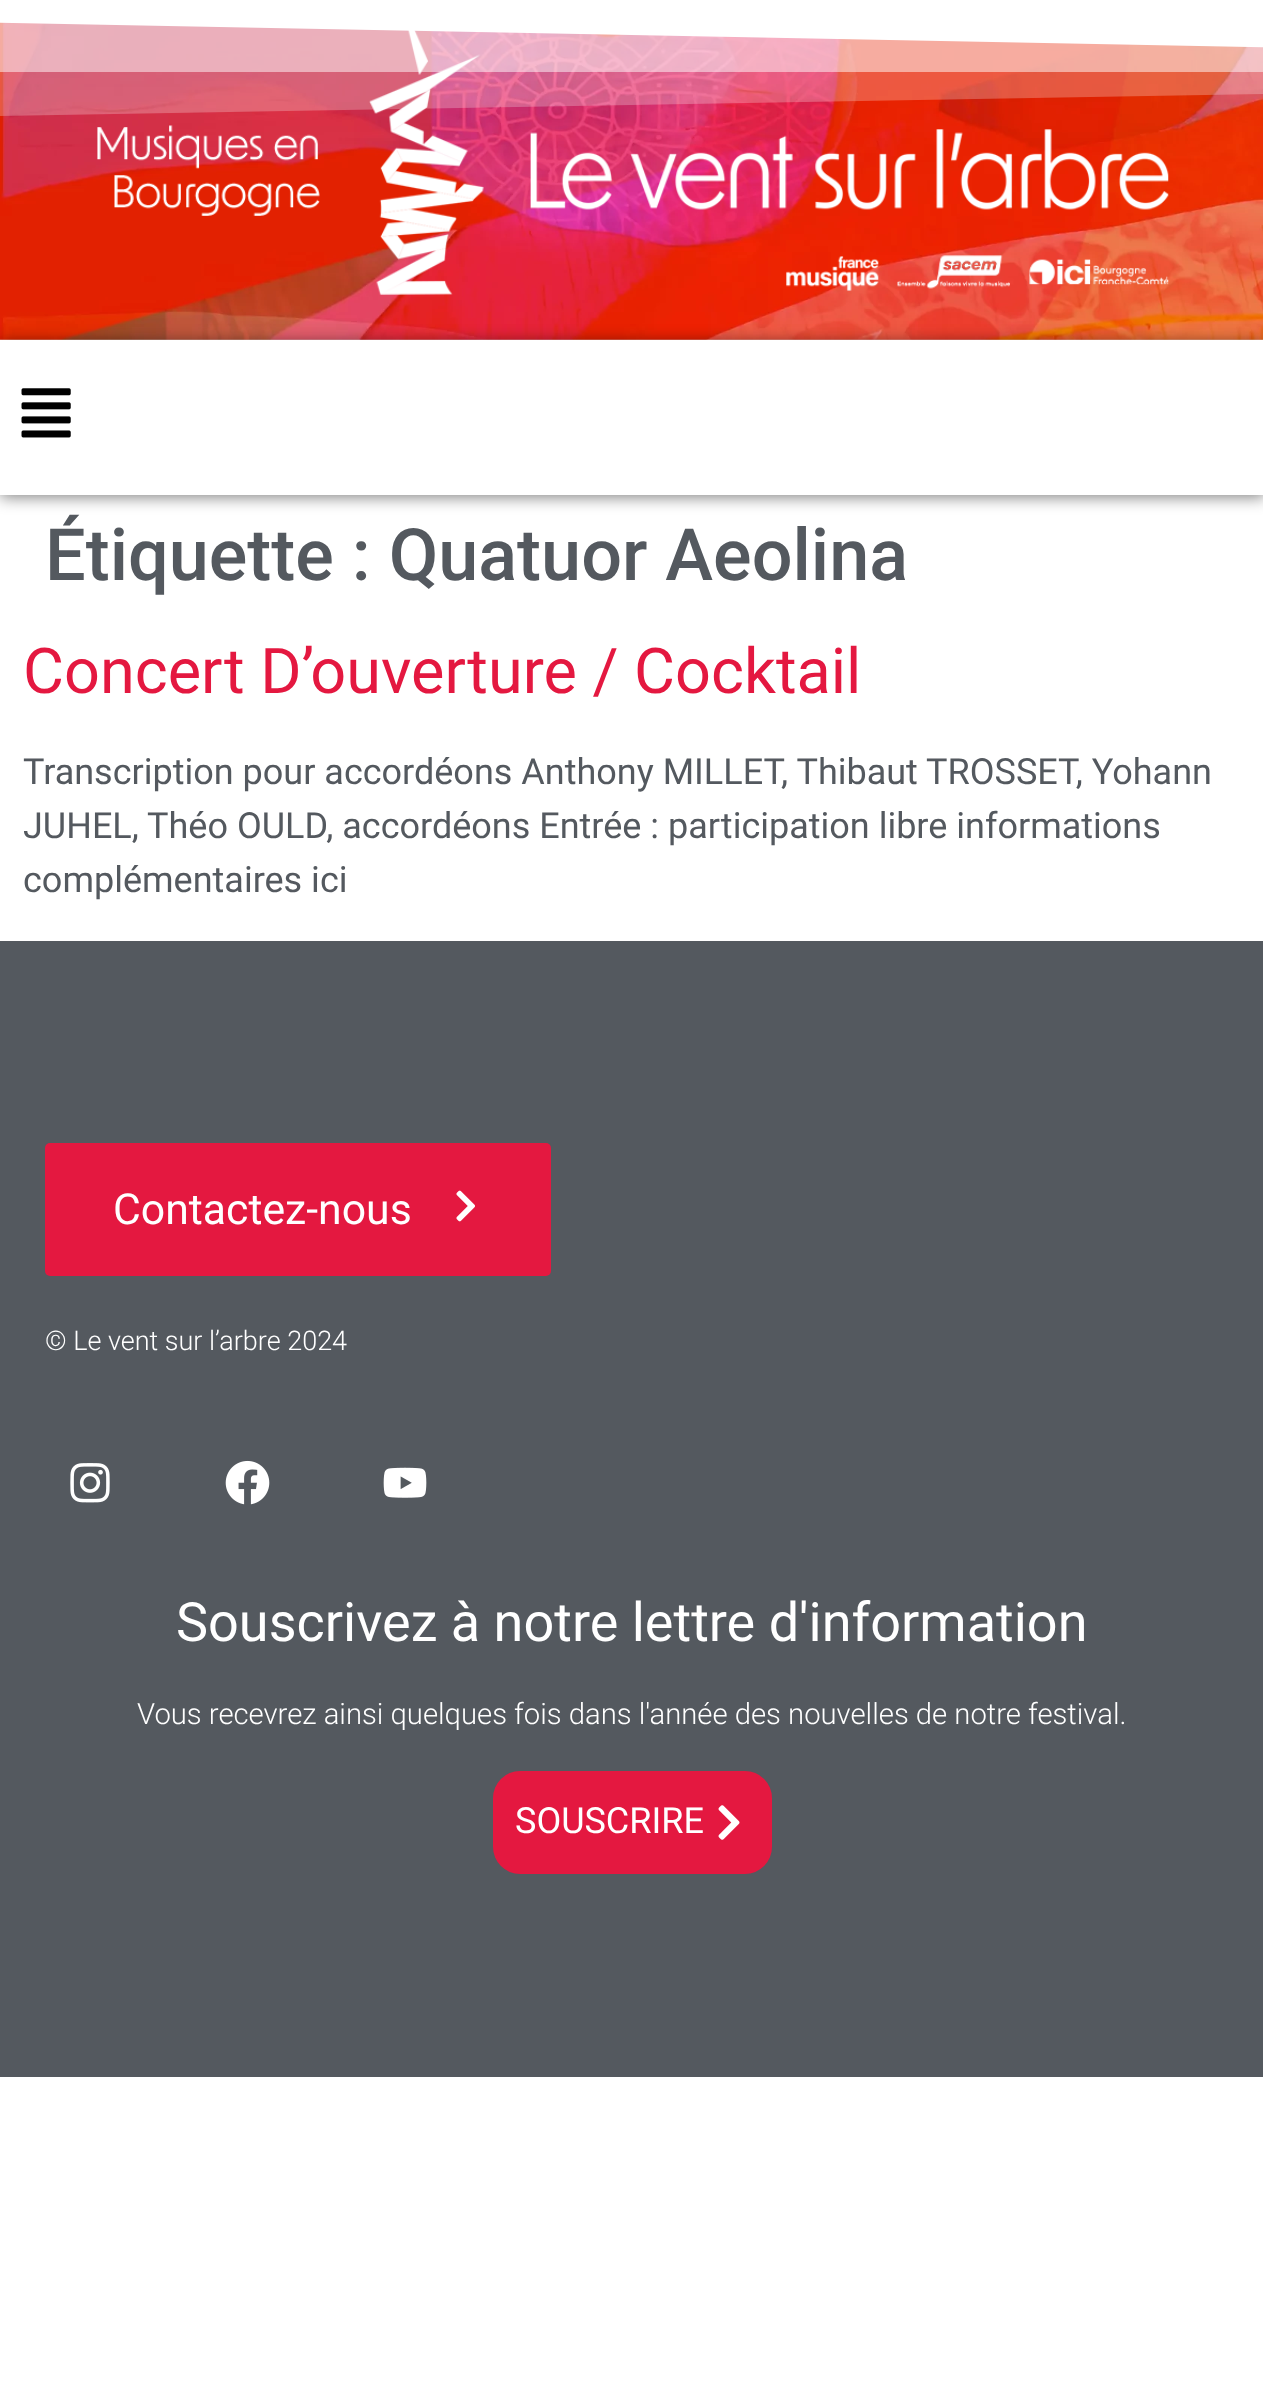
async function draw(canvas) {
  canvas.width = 1263;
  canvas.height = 2389;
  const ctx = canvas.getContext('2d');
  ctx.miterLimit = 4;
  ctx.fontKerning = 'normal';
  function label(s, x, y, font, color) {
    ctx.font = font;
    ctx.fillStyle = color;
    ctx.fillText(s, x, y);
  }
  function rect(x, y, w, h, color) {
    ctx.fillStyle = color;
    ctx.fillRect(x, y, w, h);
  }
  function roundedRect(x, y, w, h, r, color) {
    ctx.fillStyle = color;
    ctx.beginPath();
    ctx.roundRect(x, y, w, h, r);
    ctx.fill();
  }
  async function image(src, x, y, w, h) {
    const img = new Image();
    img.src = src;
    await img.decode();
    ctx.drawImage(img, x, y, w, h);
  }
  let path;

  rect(0, 0, 1263, 2389, '#fff');
  await image('assets/img1.png', 0, 22, 1263, 318);
  path = new Path2D('M-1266-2H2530V72Z');
  ctx.fill(path);
  rect(0, 22, 1263, 50, '#ffffff80');
  ctx.fillStyle = '#ffffff40';
  path = new Path2D('M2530-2H-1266V138L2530 72Z');
  ctx.fill(path);
  await image('assets/img2.png', 97, 30, 1072, 265);
  ctx.save();
  path = new Path2D('M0 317H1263V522H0ZM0 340H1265V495H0Z');
  ctx.clip(path, 'evenodd');
  ctx.fillStyle = '#00000080';
  ctx.filter = 'blur(8px)';
  ctx.beginPath();
  ctx.rect(0, 342, 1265, 155);
  ctx.fill();
  ctx.filter = 'none';
  ctx.restore();
  await image('assets/img3.png', 21, 388, 50, 50);
  label('Étiquette : Quatuor Aeolina', 45, 580, '500 72px Roboto', '#54595f');
  label('Concert D’ouverture / Cocktail', 23, 693, '63px Roboto', '#e41840');
  label('Transcription pour accordéons Anthony MILLET, Thibaut TROSSET, Yohann', 23, 784, '36px Roboto', '#54595f');
  label('JUHEL, Théo OULD, accordéons Entrée : participation libre informations', 23, 838, '36px Roboto', '#54595f');
  label('complémentaires ici', 23, 892, '36px Roboto', '#54595f');
  rect(0, 941, 1263, 1136, '#54595f');
  roundedRect(45, 1143, 506, 133, 5, '#e41840');
  label('Contactez-nous', 113, 1224, '42.75px Roboto', '#fff');
  await image('assets/img4.png', 456, 1190, 19, 32);
  label('© Le vent sur l’arbre 2024', 45, 1350, '300 27px Roboto', '#fff');
  await image('assets/img5.png', 70, 1463, 40, 40);
  await image('assets/img6.png', 225, 1460, 45, 45);
  await image('assets/img7.png', 383, 1467, 44, 31);
  label('Souscrivez à notre lettre d\'information', 176, 1641, '54px Roboto', '#fff');
  label('Vous recevrez ainsi quelques fois dans l\'année des nouvelles de notre festival.', 137, 1724, '300 29.25px Roboto', '#fff');
  roundedRect(493, 1771, 279, 103, 27, '#e41840');
  label('SOUSCRIRE', 515, 1833, '36px Roboto', '#fff');
  await image('assets/img8.png', 718, 1805, 22, 35);
}

draw(document.querySelector('canvas'));
